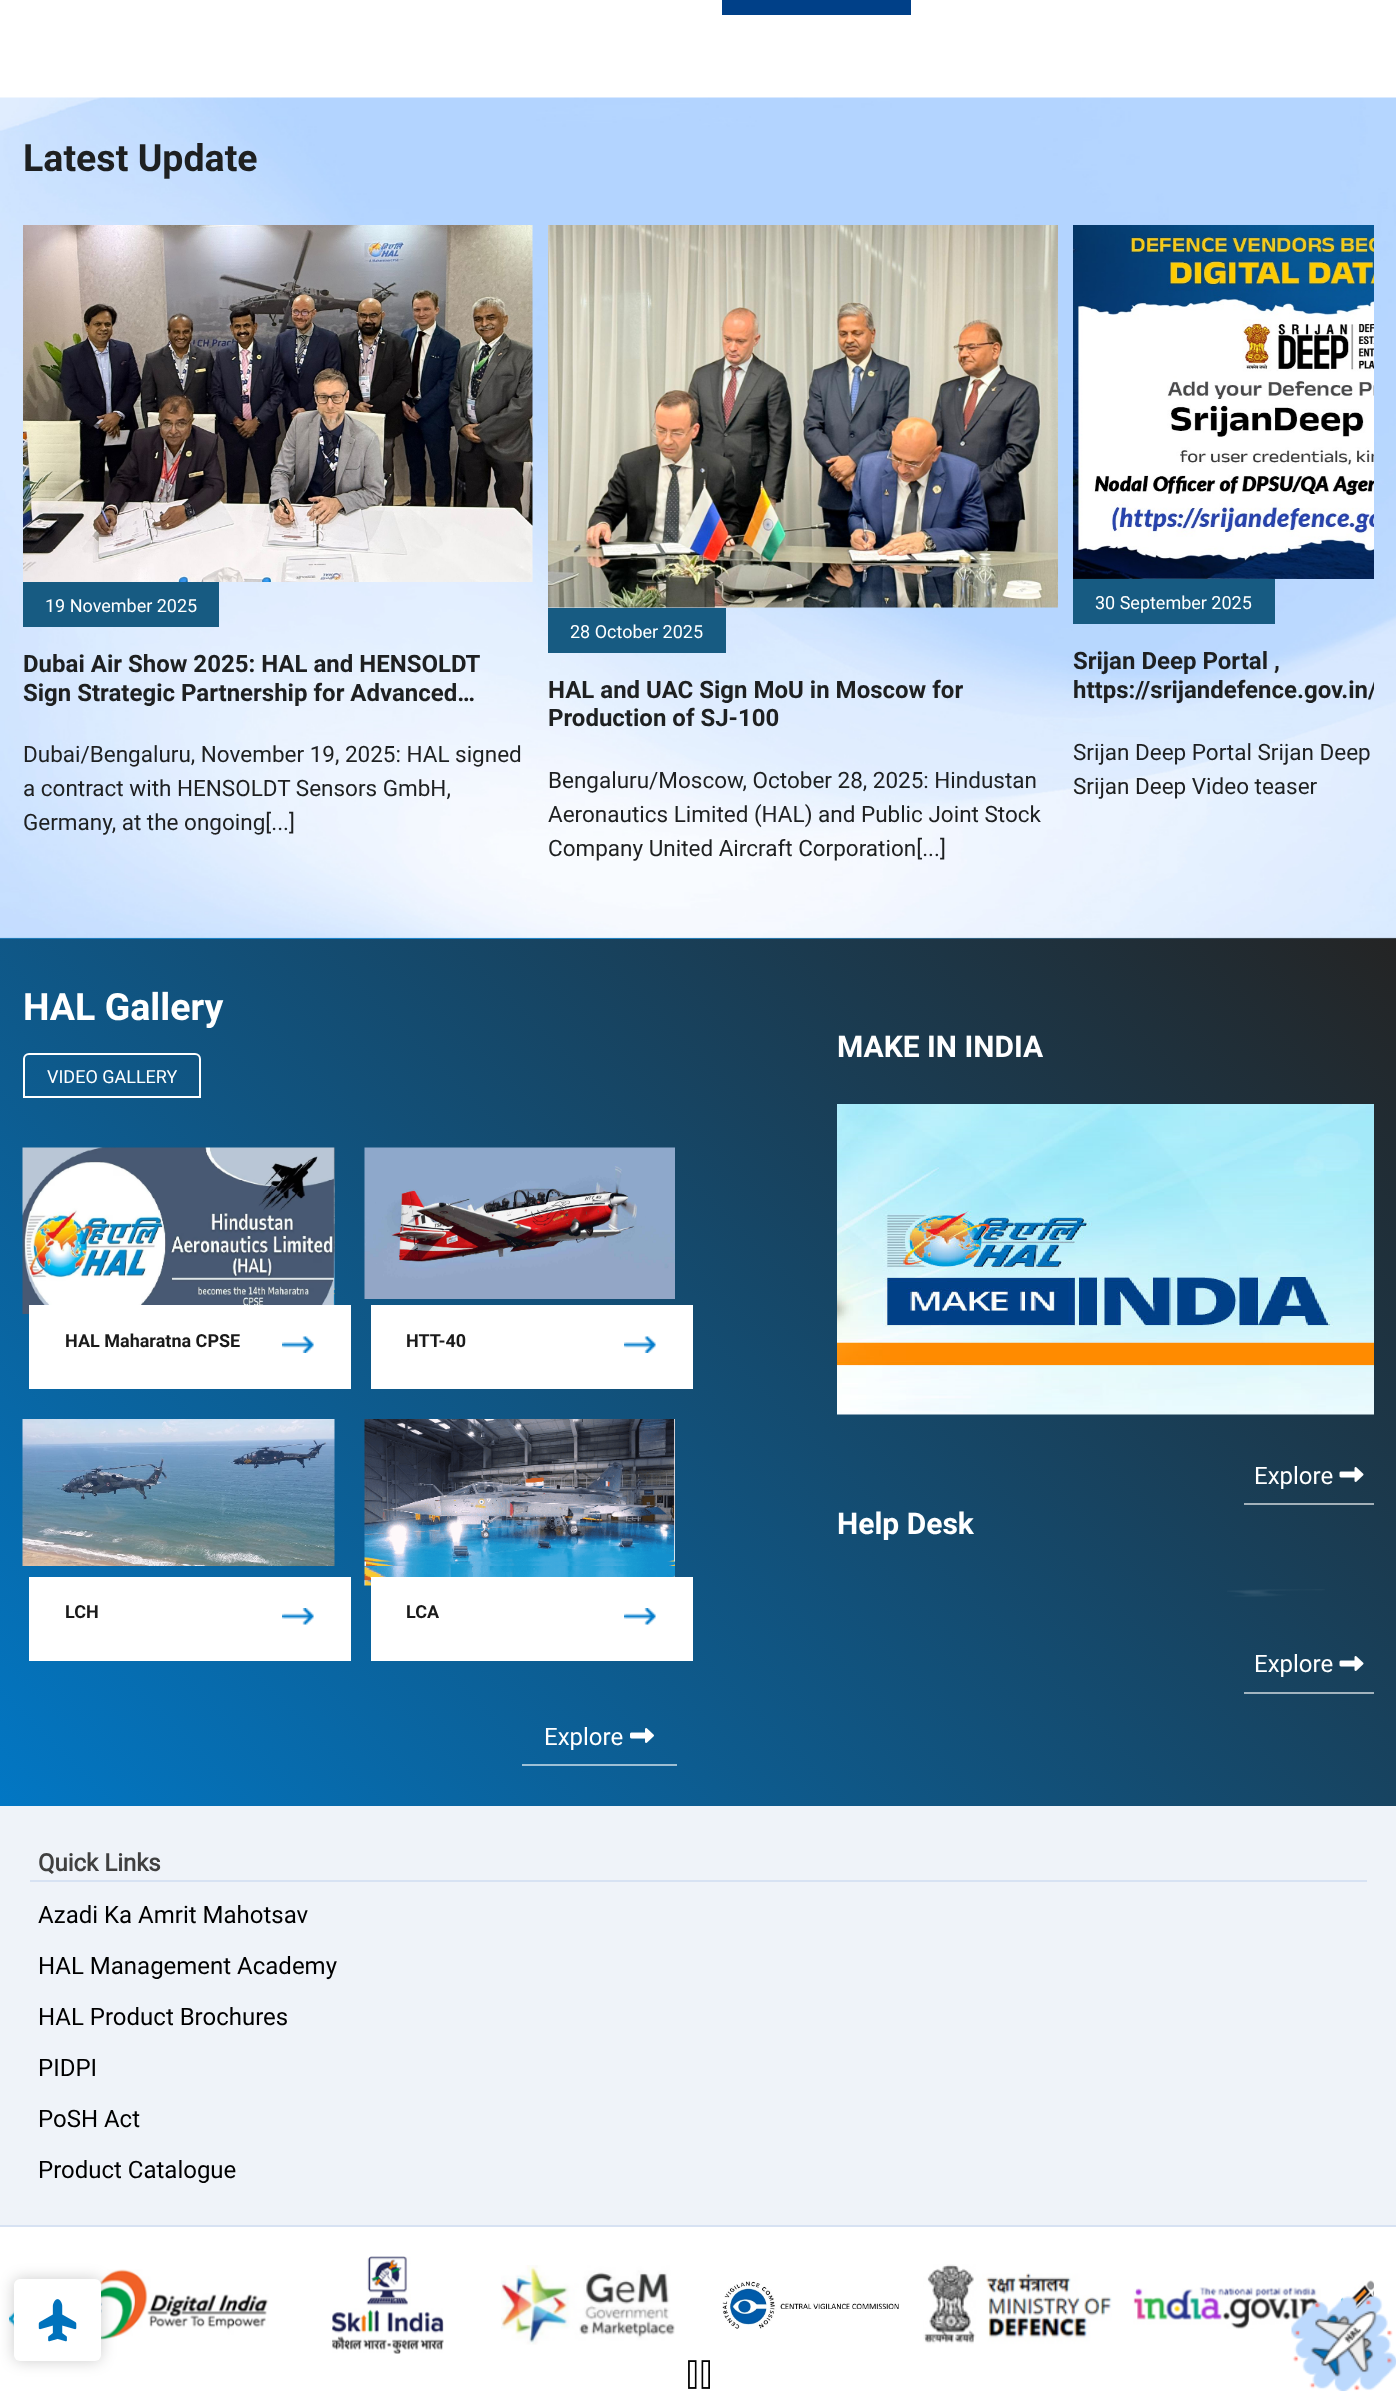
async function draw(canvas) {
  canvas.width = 1396;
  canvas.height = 2391;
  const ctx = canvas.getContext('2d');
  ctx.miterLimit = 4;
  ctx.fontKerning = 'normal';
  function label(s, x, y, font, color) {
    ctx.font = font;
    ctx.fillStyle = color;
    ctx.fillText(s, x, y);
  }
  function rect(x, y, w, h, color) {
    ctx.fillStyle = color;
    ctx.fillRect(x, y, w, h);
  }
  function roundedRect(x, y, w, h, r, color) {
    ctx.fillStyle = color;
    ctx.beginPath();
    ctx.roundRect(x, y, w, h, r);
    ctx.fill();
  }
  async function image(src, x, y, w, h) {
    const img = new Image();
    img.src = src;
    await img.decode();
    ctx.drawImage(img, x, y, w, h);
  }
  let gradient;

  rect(0, 0, 1396, 2391, '#fff');
  rect(722, 0, 189, 15, '#004088');
  await image('assets/img1.png', 0, 97, 1396, 842);
  label('Latest Update', 23, 171, 'bold 37.5px Roboto', '#1e2021');
  await image('assets/img2.png', 23, 225, 510, 357);
  rect(23, 582, 196, 45, '#175b82');
  label('19 November 2025', 45, 612, '18px Roboto', '#fff');
  label('Dubai Air Show 2025: HAL and HENSOLDT', 23, 672, 'bold 24px Roboto', '#1e2021');
  label('Sign Strategic Partnership for Advanced…', 23, 701, 'bold 24px Roboto', '#1e2021');
  label('Dubai/Bengaluru, November 19, 2025: HAL signed', 23, 762, '22.5px Roboto', '#1e2021');
  label('a contract with HENSOLDT Sensors GmbH,', 23, 796, '22.5px Roboto', '#1e2021');
  label('Germany, at the ongoing[...]', 23, 830, '22.5px Roboto', '#1e2021');
  await image('assets/img3.png', 548, 225, 510, 383);
  rect(548, 608, 178, 45, '#175b82');
  label('28 October 2025', 570, 638, '18px Roboto', '#fff');
  label('HAL and UAC Sign MoU in Moscow for', 548, 698, 'bold 24px Roboto', '#1e2021');
  label('Production of SJ-100', 548, 726, 'bold 24px Roboto', '#1e2021');
  label('Bengaluru/Moscow, October 28, 2025: Hindustan', 548, 788, '22.5px Roboto', '#1e2021');
  label('Aeronautics Limited (HAL) and Public Joint Stock', 548, 822, '22.5px Roboto', '#1e2021');
  label('Company United Aircraft Corporation[...]', 548, 856, '22.5px Roboto', '#1e2021');
  await image('assets/img4.png', 1073, 225, 301, 354);
  rect(1073, 579, 202, 45, '#175b82');
  label('30 September 2025', 1095, 609, '18px Roboto', '#fff');
  label('Srijan Deep Portal ,', 1073, 669, 'bold 24px Roboto', '#1e2021');
  ctx.save();
  ctx.beginPath();
  ctx.rect(1073, 647, 301, 58);
  ctx.clip();
  label('https://srijandefence.gov.in/', 1073, 698, 'bold 24px Roboto', '#1e2021');
  ctx.restore();
  label('Srijan Deep Portal Srijan Deep', 1073, 760, '22.5px Roboto', '#1e2021');
  label('Srijan Deep Video teaser', 1073, 794, '22.5px Roboto', '#1e2021');
  gradient = ctx.createLinearGradient(132, 1938, 1264, 807);
  gradient.addColorStop(0, '#0277c4');
  gradient.addColorStop(1, '#242424');
  ctx.fillStyle = gradient;
  ctx.fillRect(0, 939, 1396, 867);
  gradient = ctx.createLinearGradient(132, 1938, 1264, 807);
  gradient.addColorStop(0, '#9ac9e7');
  gradient.addColorStop(1, '#a7a7a7');
  ctx.fillStyle = gradient;
  ctx.fillRect(1244, 1692, 130, 2);
  ctx.fillRect(1244, 1503, 130, 2);
  ctx.fillRect(522, 1764, 155, 2);
  label('HAL Gallery', 23, 1020, 'bold 37.5px Roboto', '#fff');
  ctx.beginPath();
  ctx.roundRect(24, 1054, 176, 43, [5, 5, 0, 0]);
  ctx.strokeStyle = '#fff';
  ctx.lineWidth = 2;
  ctx.stroke();
  label('VIDEO GALLERY', 47, 1083, '18px Roboto', '#fff');
  await image('assets/img5.png', 22, 1147, 313, 167);
  rect(29, 1305, 322, 84, '#fff');
  label('HAL Maharatna CPSE', 65, 1347, 'bold 18px Roboto', '#1a1a1a');
  await image('assets/img6.png', 282, 1336, 32, 17);
  await image('assets/img7.png', 364, 1147, 311, 152);
  rect(371, 1305, 322, 84, '#fff');
  label('HTT-40', 406, 1347, 'bold 18px Roboto', '#1a1a1a');
  await image('assets/img8.png', 624, 1336, 32, 17);
  await image('assets/img9.png', 22, 1419, 313, 147);
  rect(29, 1577, 322, 84, '#fff');
  label('LCH', 65, 1618, 'bold 18px Roboto', '#1a1a1a');
  await image('assets/img10.png', 282, 1608, 32, 17);
  await image('assets/img11.png', 364, 1419, 311, 167);
  rect(371, 1577, 322, 84, '#fff');
  label('LCA', 406, 1618, 'bold 18px Roboto', '#1a1a1a');
  await image('assets/img12.png', 624, 1608, 32, 17);
  label('Explore', 544, 1745, '24px Roboto', '#fff');
  await image('assets/img13.png', 630, 1728, 24, 15);
  label('MAKE IN INDIA', 837, 1057, 'bold 30px Roboto', '#fff');
  await image('assets/img14.png', 837, 1104, 537, 311);
  label('Explore', 1254, 1484, '24px Roboto', '#fff');
  await image('assets/img15.png', 1339, 1467, 25, 15);
  label('Help Desk', 837, 1534, 'bold 30px Roboto', '#fff');
  await image('assets/img16.png', 1227, 1589, 98, 8);
  label('Explore', 1254, 1672, '24px Roboto', '#fff');
  await image('assets/img17.png', 1339, 1656, 25, 15);
  rect(0, 1806, 1396, 419, '#eff3f9');
  rect(0, 2225, 1396, 2, '#d7e2f3');
  rect(30, 1880, 1337, 2, '#d7e2f3');
  label('Quick Links', 38, 1871, 'bold 24px "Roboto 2"', '#404040');
  label('Azadi Ka Amrit Mahotsav', 38, 1923, '24px Roboto', '#000');
  label('HAL Management Academy', 38, 1974, '24px Roboto', '#000');
  label('HAL Product Brochures', 38, 2025, '24px Roboto', '#000');
  label('PIDPI', 38, 2076, '24px Roboto', '#000');
  label('PoSH Act', 38, 2127, '24px Roboto', '#000');
  label('Product Catalogue', 38, 2178, '24px Roboto', '#000');
  await image('assets/img18.png', 86, 2269, 183, 71);
  await image('assets/img19.png', 332, 2256, 112, 98);
  await image('assets/img20.png', 501, 2265, 174, 80);
  await image('assets/img21.png', 722, 2281, 177, 48);
  await image('assets/img22.png', 923, 2264, 189, 80);
  await image('assets/img23.png', 1133, 2287, 188, 42);
  await image('assets/img24.png', 1344, 2280, 30, 31);
  await image('assets/img25.png', 1341, 2297, 16, 14);
  await image('assets/img26.png', 9, 2311, 5, 16);
  await image('assets/img27.png', 688, 2360, 22, 29);
  ctx.fillStyle = '#00000033';
  ctx.filter = 'blur(7.5px)';
  ctx.beginPath();
  ctx.roundRect(14, 2279, 87, 82, 6);
  ctx.fill();
  ctx.filter = 'none';
  roundedRect(14, 2279, 87, 82, 6, '#fff');
  await image('assets/img28.png', 38, 2299, 39, 43);
  await image('assets/img29.png', 1291, 2296, 105, 95);
}

draw(document.querySelector('canvas'));
